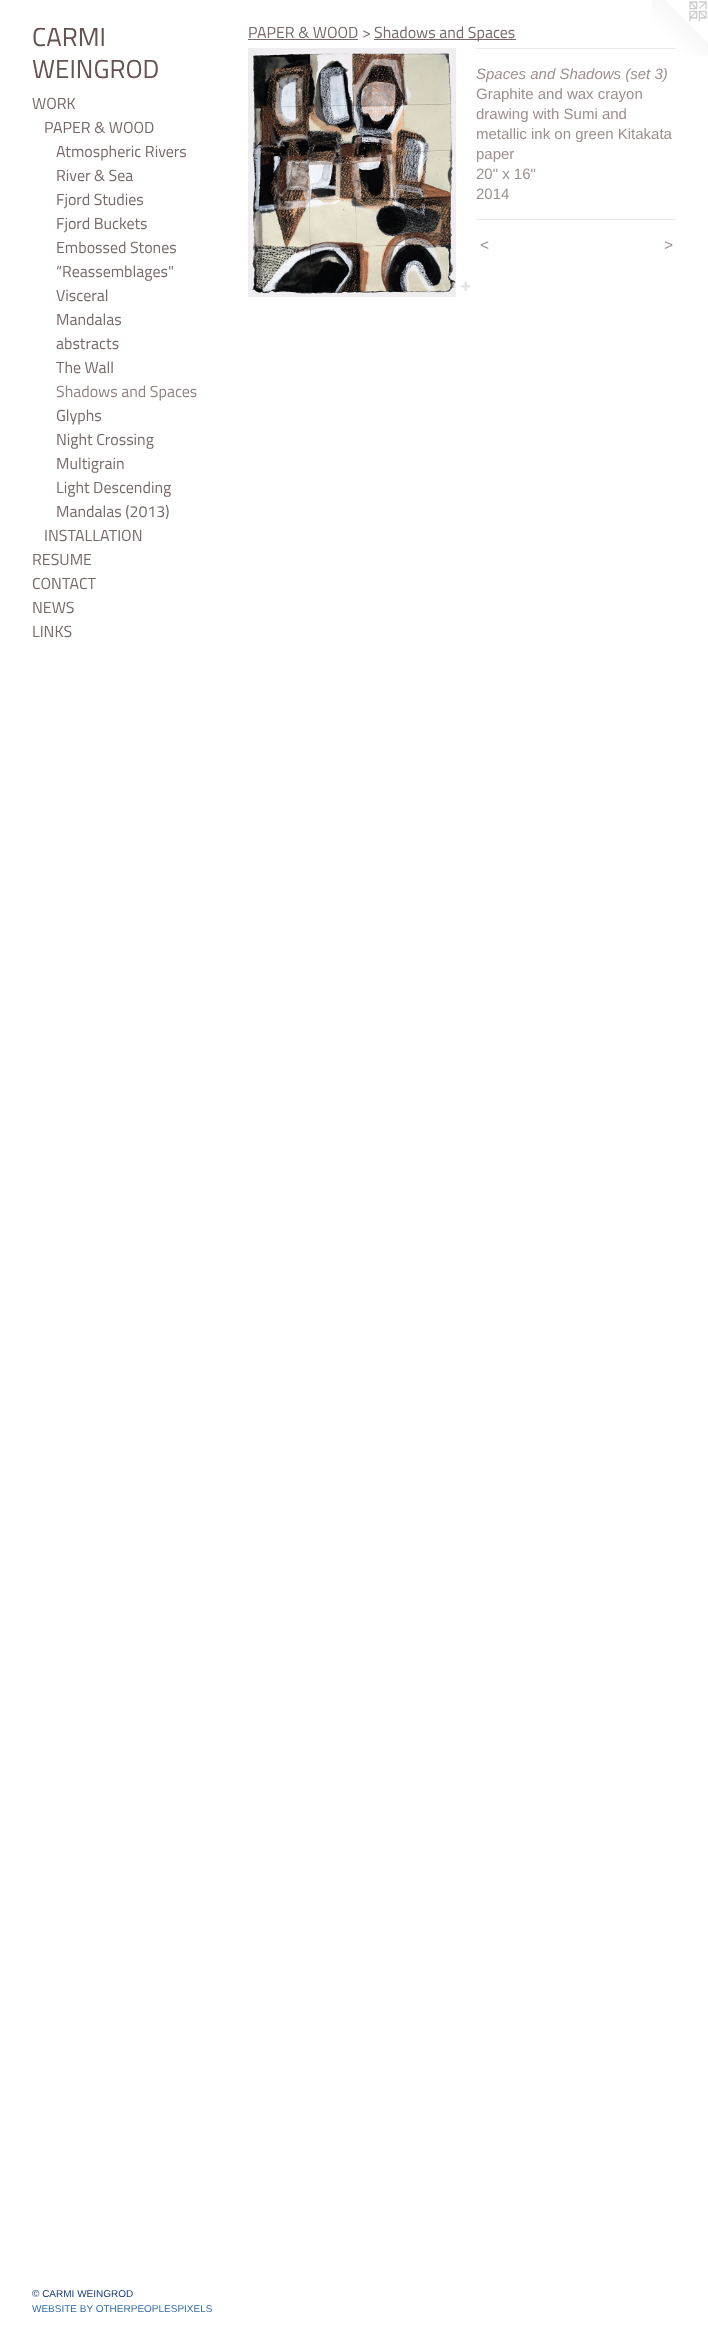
async function draw(canvas) {
  canvas.width = 708;
  canvas.height = 2339;
  const ctx = canvas.getContext('2d');
  ctx.miterLimit = 4;
  ctx.fontKerning = 'normal';
  function label(s, x, y, font, color) {
    ctx.font = font;
    ctx.fillStyle = color;
    ctx.fillText(s, x, y);
  }
  function rect(x, y, w, h, color) {
    ctx.fillStyle = color;
    ctx.fillRect(x, y, w, h);
  }
  async function image(src, x, y, w, h) {
    const img = new Image();
    img.src = src;
    await img.decode();
    ctx.drawImage(img, x, y, w, h);
  }

  rect(0, 0, 708, 2339, '#fff');
  label('CARMI', 32, 46, '26px Titillium Web', '#665252');
  label('WEINGROD', 32, 78, '26px Titillium Web', '#665252');
  label('WORK', 32, 109, '16px Titillium Web', '#776969');
  label('PAPER & WOOD', 44, 133, '16px Titillium Web', '#776969');
  label('Atmospheric Rivers', 56, 157, '16px Titillium Web', '#776969');
  label('River & Sea', 56, 181, '16px Titillium Web', '#776969');
  label('Fjord Studies', 56, 205, '16px Titillium Web', '#776969');
  label('Fjord Buckets', 56, 229, '16px Titillium Web', '#776969');
  label('Embossed Stones', 56, 253, '16px Titillium Web', '#776969');
  label('“Reassemblages"', 56, 277, '16px Titillium Web', '#776969');
  label('Visceral', 56, 301, '16px Titillium Web', '#776969');
  label('Mandalas', 56, 325, '16px Titillium Web', '#776969');
  label('abstracts', 56, 349, '16px Titillium Web', '#776969');
  label('The Wall', 56, 373, '16px Titillium Web', '#776969');
  label('Shadows and Spaces', 56, 397, '16px Titillium Web', '#918282');
  label('Glyphs', 56, 421, '16px Titillium Web', '#776969');
  label('Night Crossing', 56, 445, '16px Titillium Web', '#776969');
  label('Multigrain', 56, 469, '16px Titillium Web', '#776969');
  label('Light Descending', 56, 493, '16px Titillium Web', '#776969');
  label('Mandalas (2013)', 56, 517, '16px Titillium Web', '#776969');
  label('INSTALLATION', 44, 541, '16px Titillium Web', '#776969');
  label('RESUME', 32, 565, '16px Titillium Web', '#776969');
  label('CONTACT', 32, 589, '16px Titillium Web', '#776969');
  label('NEWS', 32, 613, '16px Titillium Web', '#776969');
  label('LINKS', 32, 637, '16px Titillium Web', '#776969');
  label('© CARMI WEINGROD', 32, 2297, '10px Liberation Sans', '#173a78');
  label('WEBSITE BY OTHERPEOPLESPIXELS', 32, 2312, '10px Liberation Sans', '#316caa');
  label('PAPER & WOOD >', 248, 38, '16px Titillium Web', '#776969');
  rect(248, 39, 110, 1, '#776969');
  rect(374, 39, 142, 1, '#776969');
  label('Shadows and Spaces', 374, 38, '16px Titillium Web', '#776969');
  await image('assets/img1.png', 248, 48, 208, 249);
  await image('assets/img2.png', 461, 281, 10, 10);
  await image('assets/img3.png', 652, 0, 56, 56);
  rect(476, 48, 200, 1, '#ece9e9');
  label('Spaces and Shadows (set 3)', 476, 79, 'italic 15px Liberation Sans', '#9e8f8f');
  label('Graphite and wax crayon', 476, 99, '15px Liberation Sans', '#9e8f8f');
  label('drawing with Sumi and', 476, 119, '15px Liberation Sans', '#9e8f8f');
  label('metallic ink on green Kitakata', 476, 139, '15px Liberation Sans', '#9e8f8f');
  label('paper', 476, 159, '15px Liberation Sans', '#9e8f8f');
  label('20" x 16"', 476, 179, '15px Liberation Sans', '#9e8f8f');
  label('2014', 476, 199, '15px Liberation Sans', '#9e8f8f');
  rect(476, 219, 200, 1, '#ece9e9');
  ctx.letterSpacing = '1px';
  label('<', 480, 250, 'italic 15px Liberation Sans', '#9e8f8f');
  label('>', 664, 250, 'italic 15px Liberation Sans', '#9e8f8f');
}

draw(document.querySelector('canvas'));
